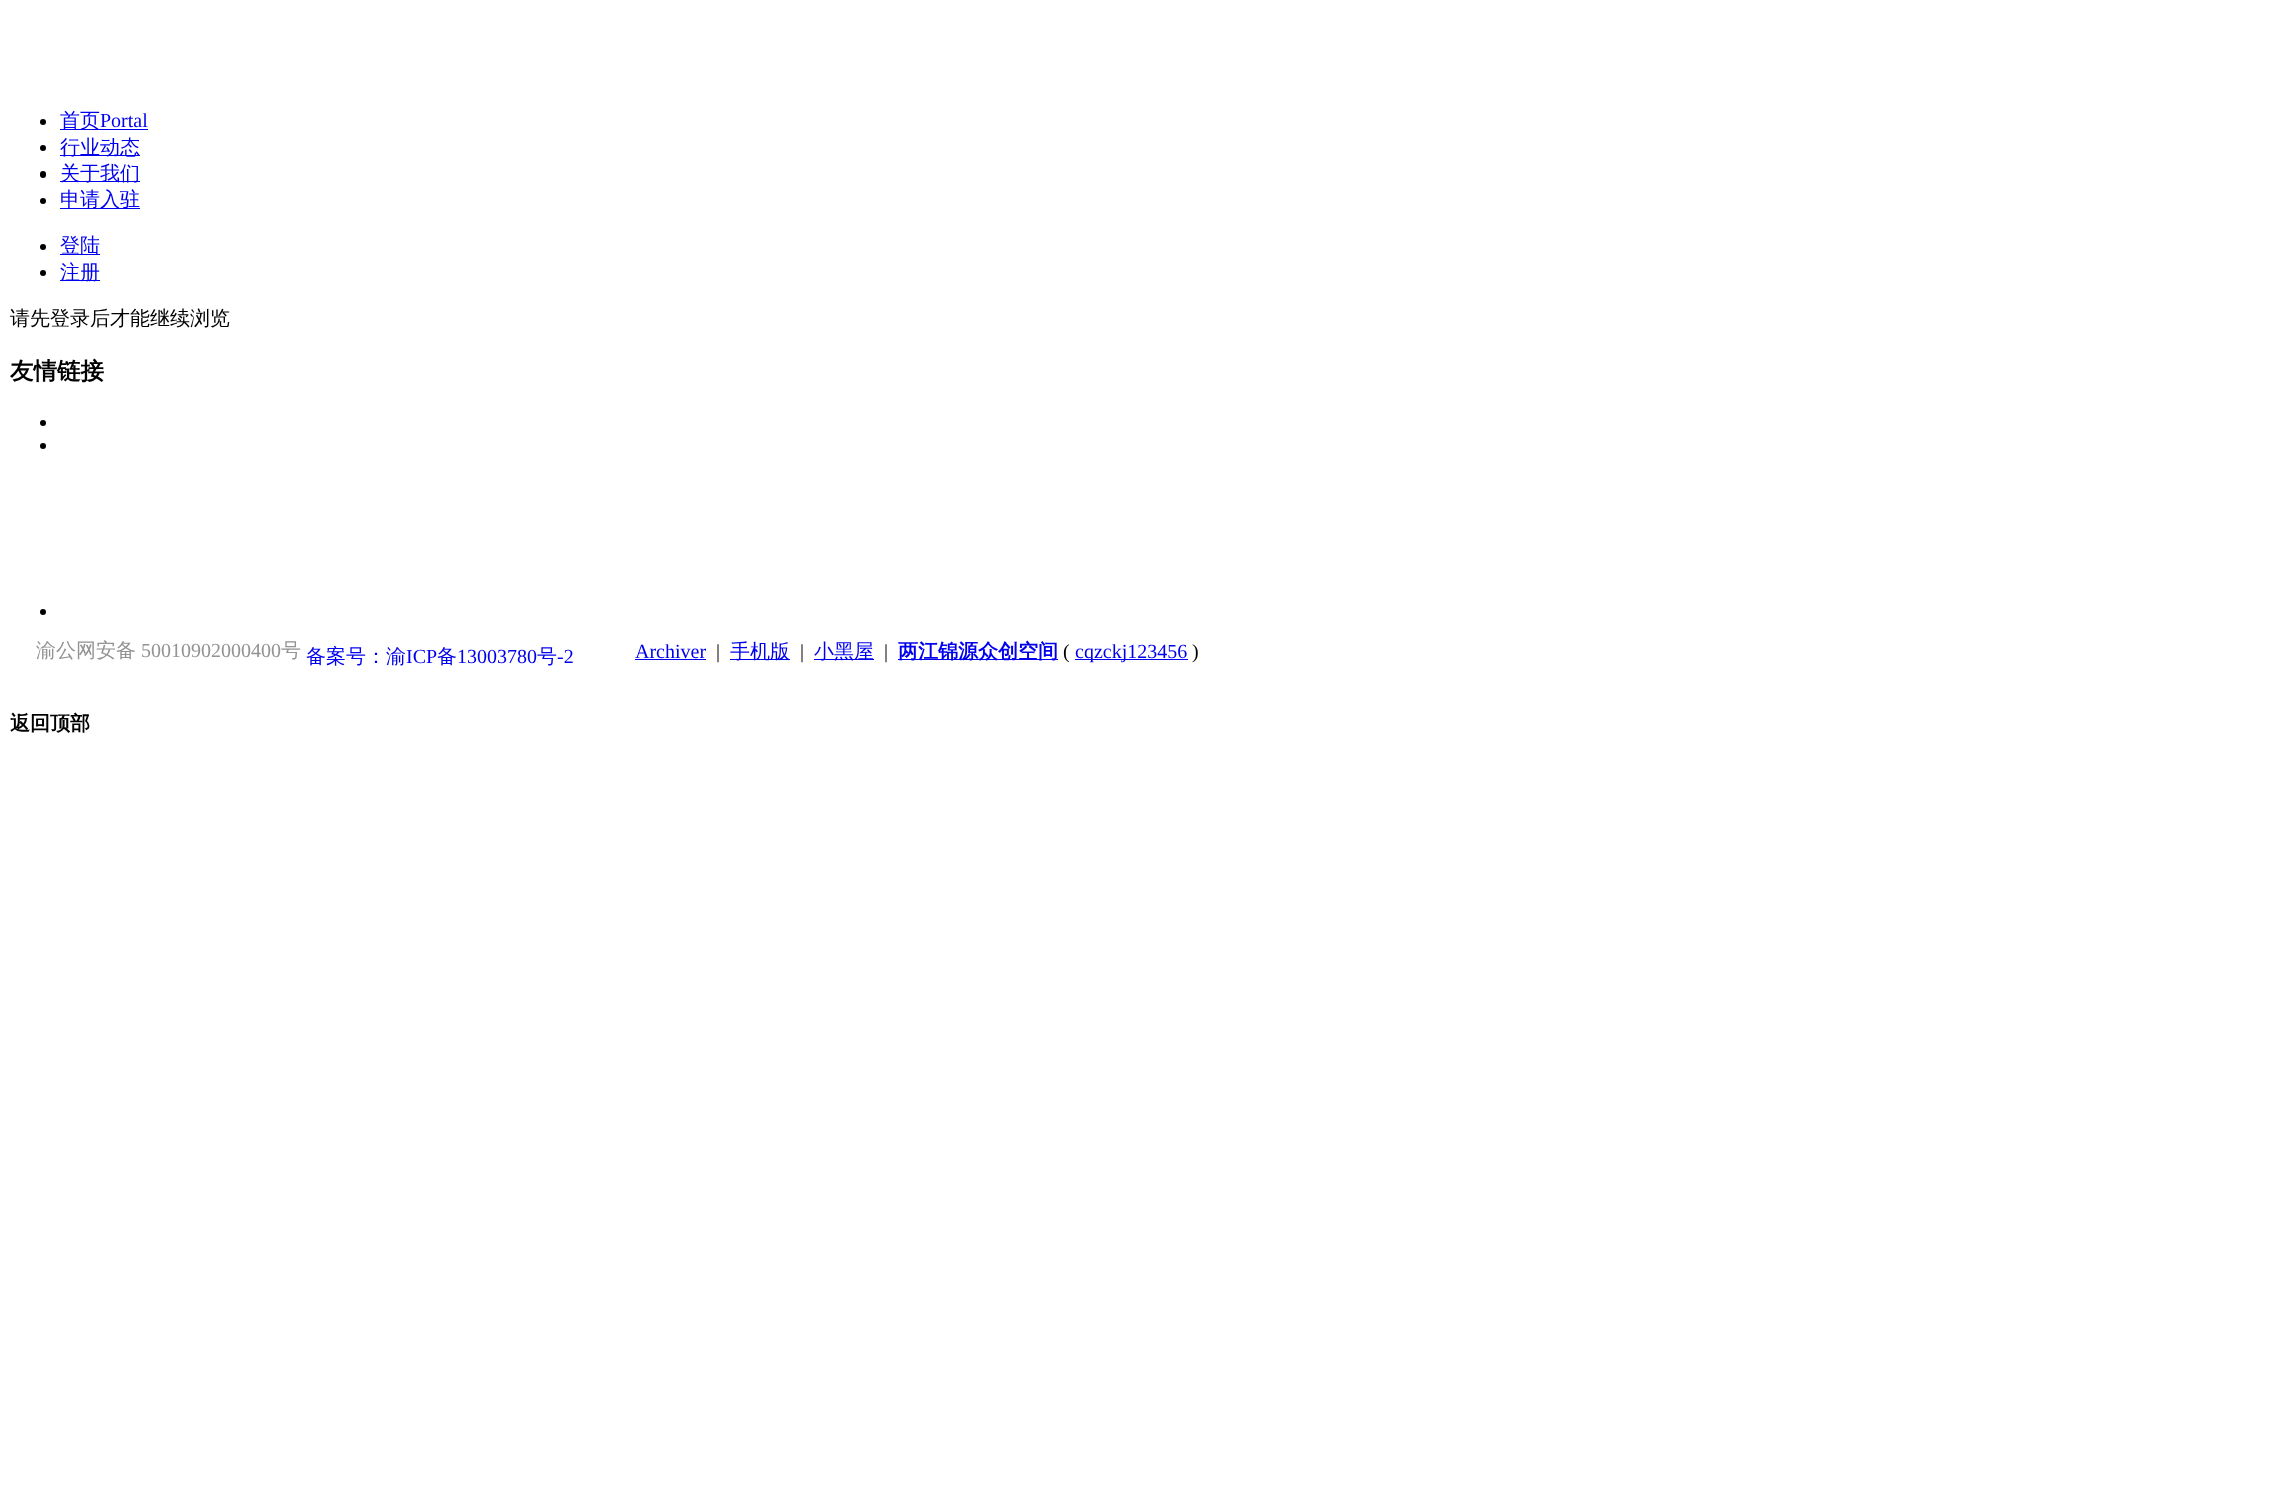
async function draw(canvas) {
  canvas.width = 2296;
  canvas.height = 1503;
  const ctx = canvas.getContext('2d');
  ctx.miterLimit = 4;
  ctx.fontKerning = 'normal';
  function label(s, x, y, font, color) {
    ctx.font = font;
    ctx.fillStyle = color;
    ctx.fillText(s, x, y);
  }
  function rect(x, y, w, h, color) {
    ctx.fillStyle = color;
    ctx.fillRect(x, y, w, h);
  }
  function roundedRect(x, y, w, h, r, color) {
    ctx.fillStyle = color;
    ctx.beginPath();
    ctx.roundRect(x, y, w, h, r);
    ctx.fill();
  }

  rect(0, 0, 2296, 1503, '#fff');
  ctx.fillStyle = '#000';
  ctx.beginPath();
  ctx.arc(43, 122, 3, 0, 2 * Math.PI);
  ctx.fill();
  rect(60, 129, 88, 1, '#00e');
  label('首页', 60, 127, '500 20px WenQuanYi Zen Hei', '#00e');
  label('Portal', 100, 127, '20px Liberation Serif', '#00e');
  ctx.fillStyle = '#000';
  ctx.beginPath();
  ctx.arc(43, 148, 3, 0, 2 * Math.PI);
  ctx.fill();
  rect(60, 155, 80, 1, '#00e');
  label('行业动态', 60, 154, '500 20px WenQuanYi Zen Hei', '#00e');
  roundedRect(40, 171, 6, 7, 3, '#000');
  rect(60, 181, 80, 1, '#00e');
  label('关于我们', 60, 180, '500 20px WenQuanYi Zen Hei', '#00e');
  ctx.fillStyle = '#000';
  ctx.beginPath();
  ctx.arc(43, 201, 3, 0, 2 * Math.PI);
  ctx.fill();
  rect(60, 208, 80, 1, '#00e');
  label('申请入驻', 60, 206, '500 20px WenQuanYi Zen Hei', '#00e');
  ctx.fillStyle = '#000';
  ctx.beginPath();
  ctx.arc(43, 247, 3, 0, 2 * Math.PI);
  ctx.fill();
  rect(60, 254, 40, 1, '#00e');
  label('登陆', 60, 252, '500 20px WenQuanYi Zen Hei', '#00e');
  ctx.fillStyle = '#000';
  ctx.beginPath();
  ctx.arc(43, 273, 3, 0, 2 * Math.PI);
  ctx.fill();
  rect(60, 280, 40, 1, '#00e');
  label('注册', 60, 279, '500 20px WenQuanYi Zen Hei', '#00e');
  label('请先登录后才能继续浏览', 10, 325, '500 20px WenQuanYi Zen Hei', '#000');
  label('友情链接', 10, 379, 'bold 23.5px WenQuanYi Zen Hei', '#000');
  ctx.beginPath();
  ctx.arc(43, 423, 3, 0, 2 * Math.PI);
  ctx.fill();
  ctx.beginPath();
  ctx.arc(43, 446, 3, 0, 2 * Math.PI);
  ctx.fill();
  ctx.beginPath();
  ctx.arc(43, 612, 3, 0, 2 * Math.PI);
  ctx.fill();
  label('渝公网安备', 36, 657, '500 20px WenQuanYi Zen Hei', '#939393');
  label('50010902000400', 141, 657, '20px Liberation Serif', '#939393');
  label('号', 281, 657, '500 20px WenQuanYi Zen Hei', '#939393');
  label('备案号：渝', 306, 663, '500 20px WenQuanYi Zen Hei', '#00e');
  label('ICP', 406, 663, '20px Liberation Serif', '#00e');
  label('备', 437, 663, '500 20px WenQuanYi Zen Hei', '#00e');
  label('13003780', 457, 663, '20px Liberation Serif', '#00e');
  label('号', 537, 663, '500 20px WenQuanYi Zen Hei', '#00e');
  label('-2', 557, 663, '20px Liberation Serif', '#00e');
  label('Archiver', 635, 658, '20px Liberation Serif', '#00e');
  rect(635, 659, 71, 1, '#00e');
  label('|', 716, 658, '20px Liberation Serif', '#000');
  rect(730, 659, 60, 1, '#00e');
  label('手机版', 730, 658, '500 20px WenQuanYi Zen Hei', '#00e');
  label('|', 800, 658, '20px Liberation Serif', '#000');
  rect(814, 659, 60, 1, '#00e');
  label('小黑屋', 814, 658, '500 20px WenQuanYi Zen Hei', '#00e');
  label('|', 884, 658, '20px Liberation Serif', '#000');
  rect(898, 659, 160, 1, '#00e');
  label('两江锦源众创空间', 898, 658, 'bold 20px WenQuanYi Zen Hei', '#00e');
  label('(', 1063, 658, '20px Liberation Serif', '#000');
  rect(1075, 659, 113, 1, '#00e');
  label('cqzckj123456', 1075, 658, '20px Liberation Serif', '#00e');
  label(')', 1192, 658, '20px Liberation Serif', '#000');
  label('返回顶部', 10, 730, 'bold 20px WenQuanYi Zen Hei', '#000');
}

draw(document.querySelector('canvas'));
